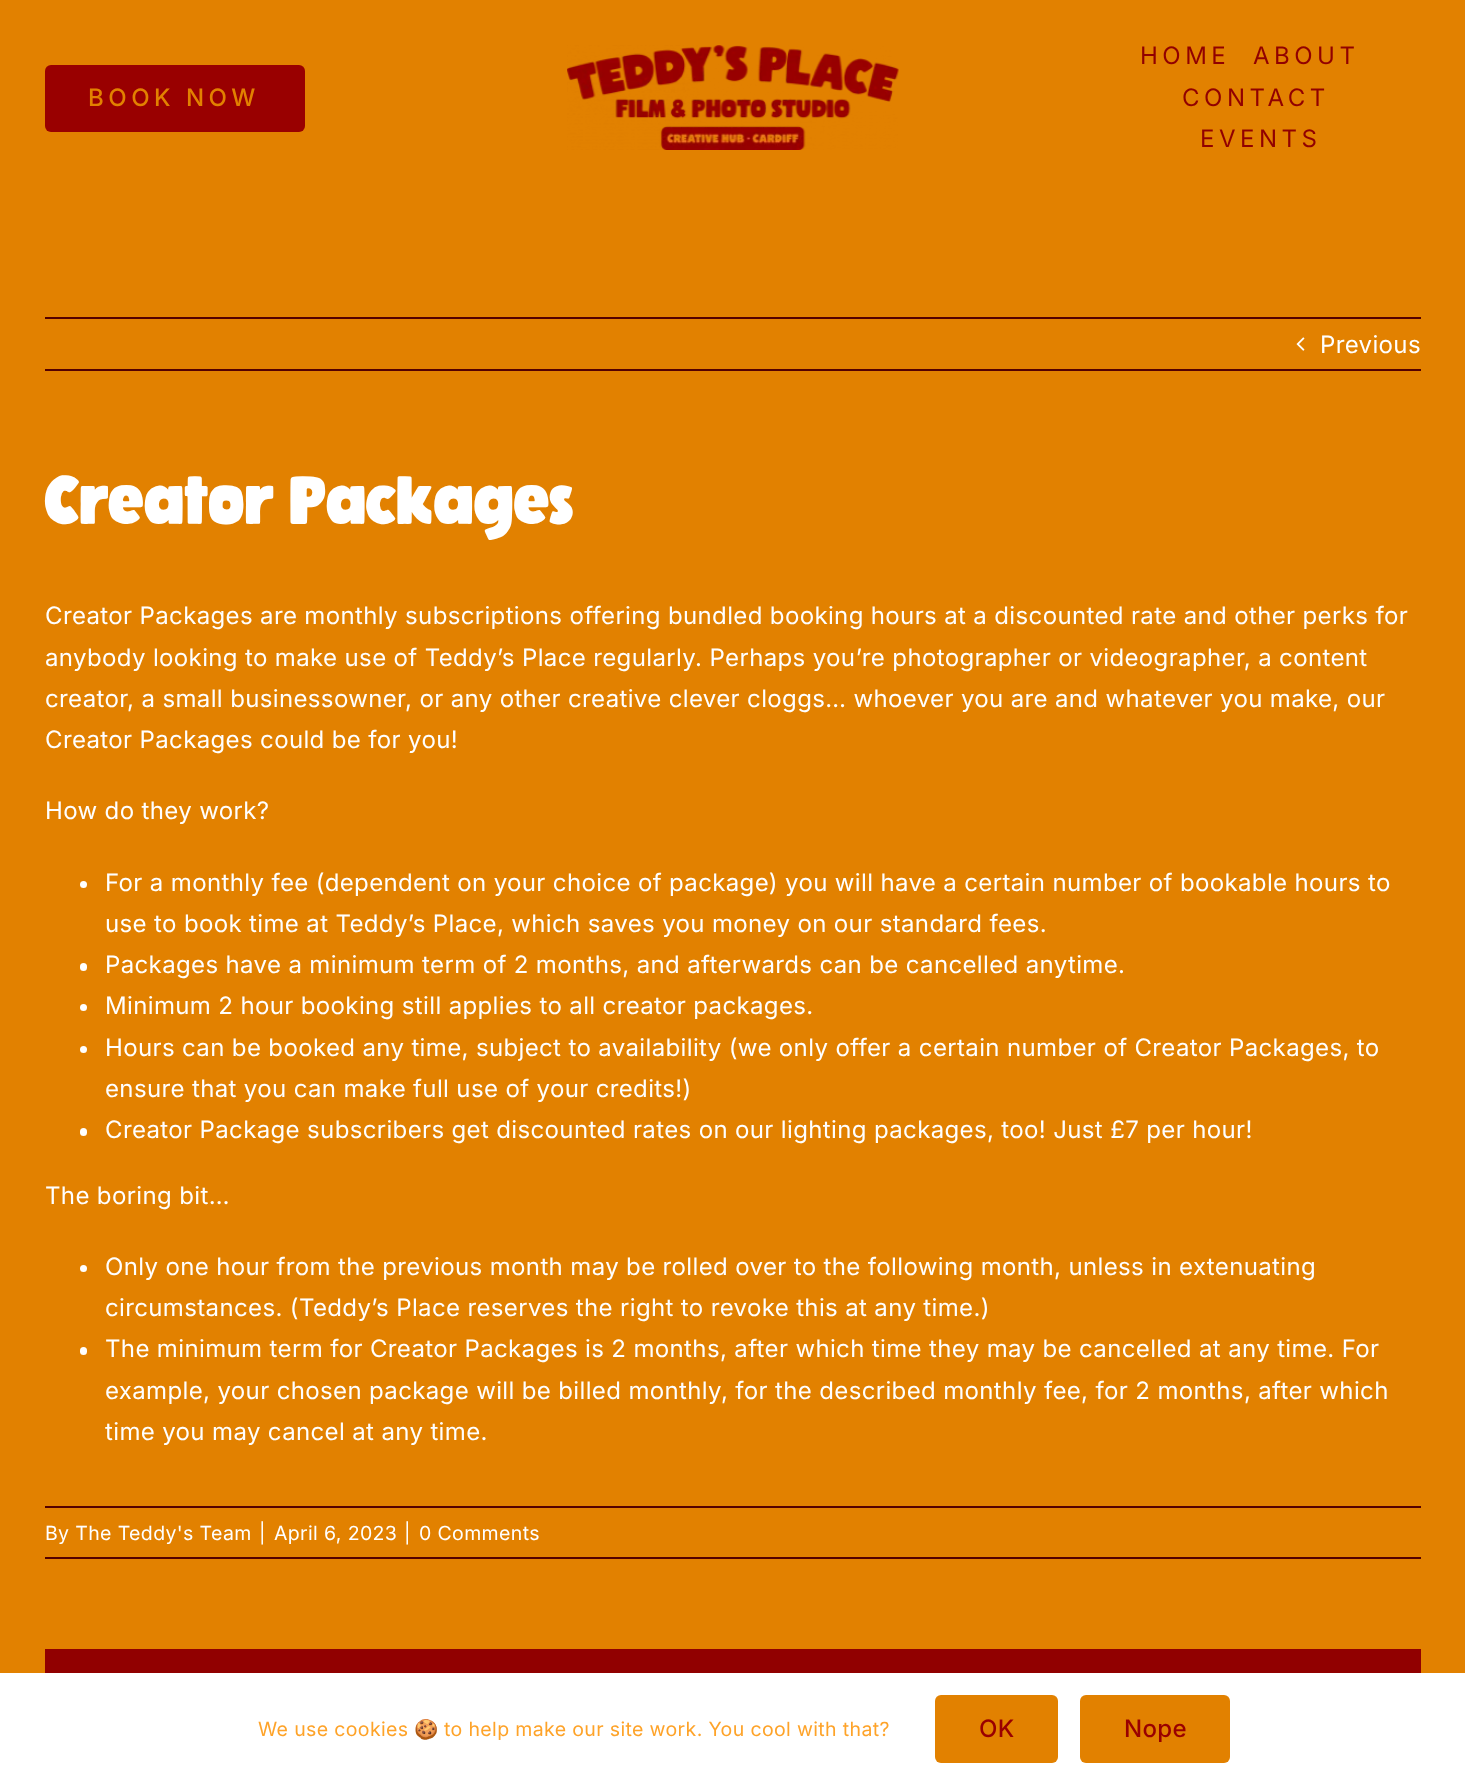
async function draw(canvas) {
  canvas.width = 1465;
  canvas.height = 1785;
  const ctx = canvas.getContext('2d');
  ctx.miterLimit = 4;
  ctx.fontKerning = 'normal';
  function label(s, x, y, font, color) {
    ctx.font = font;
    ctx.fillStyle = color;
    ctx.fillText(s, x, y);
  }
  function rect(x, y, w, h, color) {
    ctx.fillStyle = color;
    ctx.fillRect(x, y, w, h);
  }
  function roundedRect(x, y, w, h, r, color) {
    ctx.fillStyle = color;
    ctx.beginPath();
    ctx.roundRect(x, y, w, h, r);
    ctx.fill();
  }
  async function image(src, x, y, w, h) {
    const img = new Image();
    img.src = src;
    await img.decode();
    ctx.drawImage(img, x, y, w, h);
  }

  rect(0, 0, 1465, 1785, '#e28100');
  roundedRect(45, 65, 260, 67, 6, '#900');
  ctx.letterSpacing = '4.5px';
  label('BOOK NOW', 88, 106, '500 24px Inter', '#e28100');
  await image('assets/img1.png', 567, 45, 332, 105);
  label('HOME', 1140, 64, '24px Inter', '#910000');
  label('ABOUT', 1253, 64, '24px Inter', '#910000');
  label('CONTACT', 1182, 106, '24px Inter', '#910000');
  label('EVENTS', 1200, 147, '24px Inter', '#910000');
  rect(45, 317, 1376, 2, '#540000');
  rect(45, 369, 1376, 2, '#540000');
  await image('assets/img2.png', 1296, 337, 9, 14);
  ctx.letterSpacing = '0.36px';
  label('Previous', 1320, 353, '24px Inter', '#fff');
  ctx.letterSpacing = '0px';
  label('Creator Packages', 45, 524, '72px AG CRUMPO', '#fff');
  ctx.letterSpacing = '0.36px';
  label('Creator Packages are monthly subscriptions offering bundled booking hours at a discounted rate and other perks for', 45, 624, '24px Inter', '#fff');
  label('anybody looking to make use of Teddy’s Place regularly. Perhaps you’re photographer or videographer, a content', 45, 666, '24px Inter', '#fff');
  label('creator, a small businessowner, or any other creative clever cloggs… whoever you are and whatever you make, our', 45, 707, '24px Inter', '#fff');
  label('Creator Packages could be for you!', 45, 748, '24px Inter', '#fff');
  label('How do they work?', 45, 819, '24px Inter', '#fff');
  ctx.beginPath();
  ctx.arc(83.5, 884.5, 3.5, 0, 2 * Math.PI);
  ctx.fill();
  label('For a monthly fee (dependent on your choice of package) you will have a certain number of bookable hours to', 105, 891, '24px Inter', '#fff');
  label('use to book time at Teddy’s Place, which saves you money on our standard fees.', 105, 932, '24px Inter', '#fff');
  roundedRect(80, 963, 7, 8, 3.5, '#fff');
  label('Packages have a minimum term of 2 months, and afterwards can be cancelled anytime.', 105, 973, '24px Inter', '#fff');
  ctx.beginPath();
  ctx.arc(83.5, 1007.5, 3.5, 0, 2 * Math.PI);
  ctx.fill();
  label('Minimum 2 hour booking still applies to all creator packages.', 105, 1014, '24px Inter', '#fff');
  ctx.beginPath();
  ctx.arc(83.5, 1049.5, 3.5, 0, 2 * Math.PI);
  ctx.fill();
  label('Hours can be booked any time, subject to availability (we only offer a certain number of Creator Packages, to', 105, 1056, '24px Inter', '#fff');
  label('ensure that you can make full use of your credits!)', 105, 1097, '24px Inter', '#fff');
  roundedRect(80, 1128, 7, 8, 3.5, '#fff');
  label('Creator Package subscribers get discounted rates on our lighting packages, too! Just £7 per hour!', 105, 1138, '24px Inter', '#fff');
  label('The boring bit…', 45, 1204, '24px Inter', '#fff');
  ctx.beginPath();
  ctx.arc(83.5, 1268.5, 3.5, 0, 2 * Math.PI);
  ctx.fill();
  label('Only one hour from the previous month may be rolled over to the following month, unless in extenuating', 105, 1275, '24px Inter', '#fff');
  label('circumstances. (Teddy’s Place reserves the right to revoke this at any time.)', 105, 1316, '24px Inter', '#fff');
  roundedRect(80, 1347, 7, 8, 3.5, '#fff');
  label('The minimum term for Creator Packages is 2 months, after which time they may be cancelled at any time. For', 105, 1357, '24px Inter', '#fff');
  label('example, your chosen package will be billed monthly, for the described monthly fee, for 2 months, after which', 105, 1399, '24px Inter', '#fff');
  label('time you may cancel at any time.', 105, 1440, '24px Inter', '#fff');
  rect(45, 1506, 1376, 2, '#540000');
  rect(45, 1557, 1376, 2, '#540000');
  label('By The Teddy\'s Team', 45, 1540, '19.5px Inter', '#fff');
  label('|', 259, 1540, '19.5px Inter', '#fff');
  label('April 6, 2023', 274, 1540, '19.5px Inter', '#fff');
  label('|', 404, 1540, '19.5px Inter', '#fff');
  label('0 Comments', 419, 1540, '19.5px Inter', '#fff');
  rect(45, 1649, 1376, 24, '#910000');
  rect(0, 1673, 1465, 112, '#fff');
  label('We use cookies', 258, 1736, '19.5px Inter', '#fea329');
  label('🍪', 414, 1736, '19.5px Noto Color Emoji', '#fea329');
  label('to help make our site work. You cool with that?', 444, 1736, '19.5px Inter', '#fea329');
  roundedRect(935, 1695, 123, 68, 6, '#e28100');
  label('OK', 979, 1737, '500 24px Inter', '#900');
  roundedRect(1080, 1695, 150, 68, 6, '#e28100');
  label('Nope', 1124, 1737, '500 24px Inter', '#900');
}

draw(document.querySelector('canvas'));
